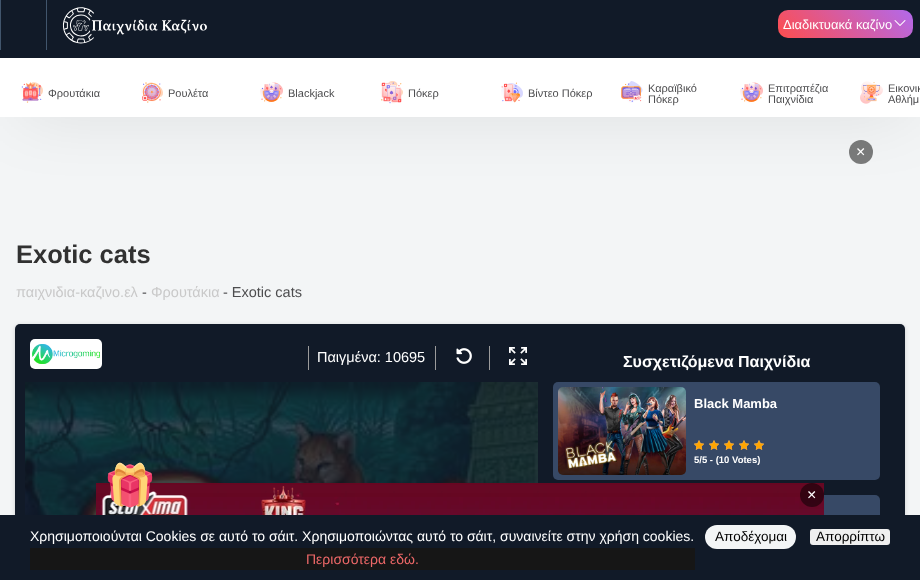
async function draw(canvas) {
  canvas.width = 920;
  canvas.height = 580;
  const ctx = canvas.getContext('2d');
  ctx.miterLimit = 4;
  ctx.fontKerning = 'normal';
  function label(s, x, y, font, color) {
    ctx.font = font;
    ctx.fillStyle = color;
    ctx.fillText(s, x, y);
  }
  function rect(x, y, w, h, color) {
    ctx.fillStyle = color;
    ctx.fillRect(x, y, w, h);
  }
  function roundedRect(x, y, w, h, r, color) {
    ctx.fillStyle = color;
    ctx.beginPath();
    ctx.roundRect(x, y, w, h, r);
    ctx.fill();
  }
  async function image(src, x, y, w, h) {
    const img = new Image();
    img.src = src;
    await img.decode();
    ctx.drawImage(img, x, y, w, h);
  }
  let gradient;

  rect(0, 0, 920, 580, '#f3f5f6');
  ctx.fillStyle = '#7a7b7b';
  ctx.beginPath();
  ctx.arc(861, 152, 12, 0, 2 * Math.PI);
  ctx.fill();
  ctx.fillStyle = '#00000029';
  ctx.filter = 'blur(34.5px)';
  ctx.beginPath();
  ctx.rect(20, 77, 890, 29);
  ctx.fill();
  ctx.filter = 'none';
  rect(0, 0, 920, 58, '#111a28');
  rect(46, 0, 1, 50, '#41556c');
  rect(0, 0, 1, 50, '#41556c');
  await image('assets/img1.png', 62, 7, 145, 37);
  gradient = ctx.createLinearGradient(805, 65, 886, -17);
  gradient.addColorStop(0, '#ff4d4d');
  gradient.addColorStop(1, '#b269ec');
  ctx.fillStyle = gradient;
  ctx.beginPath();
  ctx.roundRect(778, 10, 135, 28, 10);
  ctx.fill();
  label('Διαδικτυακά καζίνο', 783, 29, '13px Liberation Sans', '#fff');
  await image('assets/img2.png', 894, 20, 12, 6);
  rect(0, 58, 920, 59, '#fff');
  await image('assets/img3.png', 20, 82, 23, 21);
  label('Φρουτάκια', 48, 97, '11px Liberation Sans', '#4d4d4f');
  await image('assets/img4.png', 141, 82, 22, 21);
  label('Ρουλέτα', 168, 97, '11px Liberation Sans', '#4d4d4f');
  await image('assets/img5.png', 260, 82, 23, 21);
  label('Blackjack', 288, 97, '11px Liberation Sans', '#4d4d4f');
  await image('assets/img6.png', 380, 81, 23, 23);
  label('Πόκερ', 408, 97, '11px Liberation Sans', '#4d4d4f');
  await image('assets/img7.png', 501, 82, 22, 21);
  label('Βίντεο Πόκερ', 528, 97, '11px Liberation Sans', '#4d4d4f');
  await image('assets/img8.png', 621, 81, 22, 22);
  label('Καραϊβικό', 648, 92, '11px Liberation Sans', '#4d4d4f');
  label('Πόκερ', 648, 103, '11px Liberation Sans', '#4d4d4f');
  await image('assets/img5.png', 740, 82, 23, 21);
  label('Επιτραπέζια', 768, 92, '11px Liberation Sans', '#4d4d4f');
  label('Παιχνίδια', 768, 103, '11px Liberation Sans', '#4d4d4f');
  await image('assets/img9.png', 860, 81, 23, 23);
  label('Εικονικ', 888, 92, '11px Liberation Sans', '#4d4d4f');
  label('Αθλήμ', 888, 103, '11px Liberation Sans', '#4d4d4f');
  label('×', 856, 157, '16px Liberation Sans', '#fff');
  label('Exotic cats', 16, 263, 'bold 25.5px Liberation Sans', '#313131');
  label('παιχνιδια-καζινο.ελ', 16, 297, '14.5px Liberation Sans', '#c9c9c9');
  label('-', 142, 297, '14.5px Liberation Sans', '#4d4d4f');
  label('Φρουτάκια', 151, 297, '14.5px Liberation Sans', '#c9c9c9');
  label('- Exotic cats', 223, 297, '14.5px Liberation Sans', '#4d4d4f');
  ctx.fillStyle = '#00000026';
  ctx.filter = 'blur(2px)';
  ctx.beginPath();
  ctx.roundRect(15, 325, 890, 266, 5);
  ctx.fill();
  ctx.filter = 'none';
  roundedRect(15, 324, 890, 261, 5, '#111a28');
  roundedRect(30, 339, 72, 30, 5, '#fff');
  await image('assets/img10.png', 32, 344, 68, 20);
  rect(308, 346, 1, 24, '#9b9b9b');
  label('Παιγμένα: 10695', 317, 362, '14.5px Liberation Sans', '#fff');
  rect(435, 346, 1, 24, '#9b9b9b');
  await image('assets/img11.png', 456, 348, 16, 16);
  rect(489, 346, 1, 24, '#9b9b9b');
  await image('assets/img12.png', 509, 347, 18, 18);
  await image('assets/img13.png', 25, 382, 513, 133);
  label('Συσχετιζόμενα Παιχνίδια', 623, 367, 'bold 16px Liberation Sans', '#fff');
  roundedRect(553, 382, 327, 98, 5, '#374966');
  await image('assets/img14.png', 558, 387, 128, 88);
  label('Black Mamba', 694, 408, 'bold 13px Liberation Sans', '#fff');
  await image('assets/img15.png', 694, 440, 10, 10);
  await image('assets/img15.png', 709, 440, 10, 10);
  await image('assets/img15.png', 724, 440, 10, 10);
  await image('assets/img15.png', 739, 440, 10, 10);
  await image('assets/img15.png', 754, 440, 10, 10);
  await image('assets/img16.png', 694, 440, 10, 10);
  await image('assets/img16.png', 709, 440, 10, 10);
  await image('assets/img16.png', 724, 440, 10, 10);
  await image('assets/img16.png', 739, 440, 10, 10);
  await image('assets/img16.png', 754, 440, 10, 10);
  label('5/5 - (10 Votes)', 694, 463, 'bold 9.5px Liberation Sans', '#fff');
  roundedRect(553, 495, 327, 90, 5, '#374966');
  await image('assets/img17.png', 96, 483, 728, 32);
  ctx.fillStyle = '#00000080';
  ctx.beginPath();
  ctx.arc(812, 495, 12, 0, 2 * Math.PI);
  ctx.fill();
  label('×', 807, 500, '16px Liberation Sans', '#fff');
  rect(0, 515, 920, 65, '#111a28');
  label('Χρησιμοποιούνται Cookies σε αυτό το σάιτ. Χρησιμοποιώντας αυτό το σάιτ, συναινείτε στην χρήση cookies.', 30, 541, '14px Liberation Sans', '#fff');
  rect(30, 548, 665, 22, '#161616');
  label('Περισσότερα εδώ.', 306, 564, '14px Liberation Sans', '#ed6868');
  roundedRect(705, 525, 91, 24, 12, '#f3f5f6');
  label('Αποδέχομαι', 715, 541, '13.5px Liberation Sans', '#000');
  roundedRect(810, 529, 80, 16, 3, '#efefef');
  label('Απορρίπτω', 816, 541, '13.5px Liberation Sans', '#000');
  await image('assets/img18.png', 107, 462, 46, 46);
}

draw(document.querySelector('canvas'));
